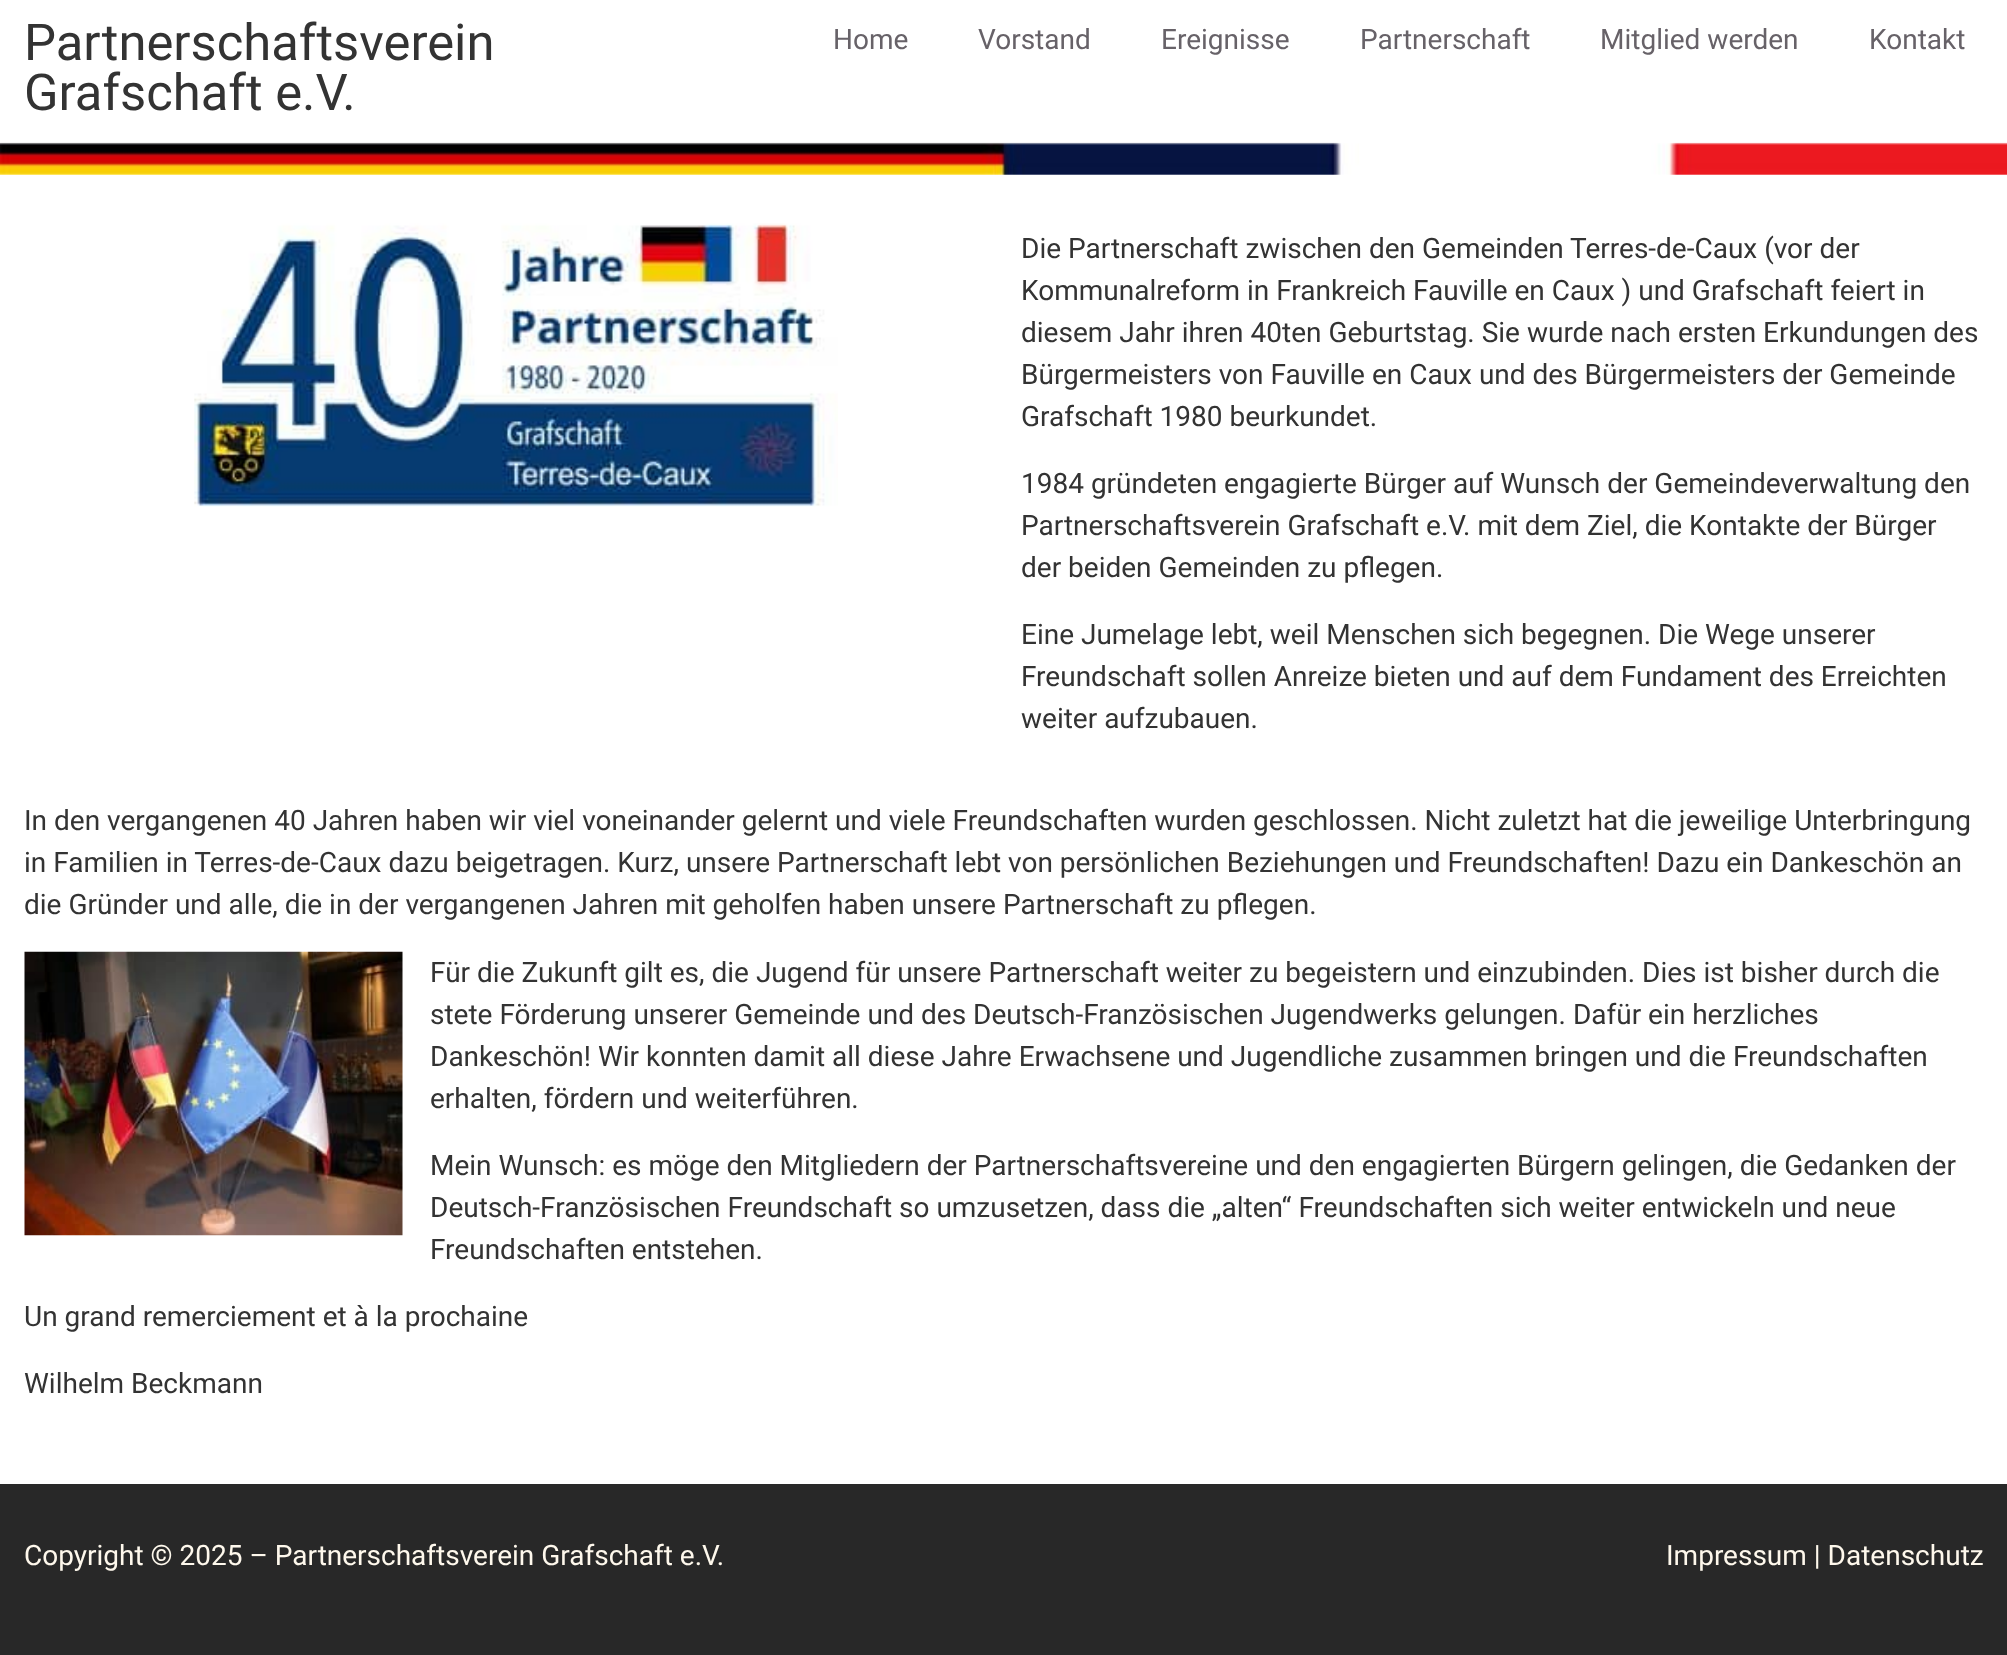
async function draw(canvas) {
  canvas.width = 2007;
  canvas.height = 1655;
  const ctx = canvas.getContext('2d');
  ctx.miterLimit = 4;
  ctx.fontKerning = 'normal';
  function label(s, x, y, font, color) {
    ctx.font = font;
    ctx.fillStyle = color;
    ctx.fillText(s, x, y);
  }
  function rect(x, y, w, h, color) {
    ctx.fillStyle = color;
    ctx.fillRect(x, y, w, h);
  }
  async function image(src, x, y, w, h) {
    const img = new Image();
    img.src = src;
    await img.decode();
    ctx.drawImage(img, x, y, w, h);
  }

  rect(0, 0, 2007, 1655, '#fff');
  label('Partnerschaftsverein', 24, 60, '50.75px Roboto', '#333');
  label('Grafschaft e.V.', 24, 110, '50.75px Roboto', '#333');
  label('Home', 833, 49, '28px Roboto', '#676268');
  label('Vorstand', 978, 49, '28px Roboto', '#676268');
  label('Ereignisse', 1161, 49, '28px Roboto', '#676268');
  label('Partnerschaft', 1360, 49, '28px Roboto', '#676268');
  label('Mitglied werden', 1600, 49, '28px Roboto', '#676268');
  label('Kontakt', 1869, 49, '28px Roboto', '#676268');
  await image('assets/img1.png', 0, 142, 2007, 33);
  await image('assets/img2.png', 194, 223, 644, 284);
  label('Die Partnerschaft zwischen den Gemeinden Terres-de-Caux (vor der', 1021, 258, '28px Roboto', '#333');
  label('Kommunalreform in Frankreich Fauville en Caux ) und Grafschaft feiert in', 1021, 300, '28px Roboto', '#333');
  label('diesem Jahr ihren 40ten Geburtstag. Sie wurde nach ersten Erkundungen des', 1021, 342, '28px Roboto', '#333');
  label('Bürgermeisters von Fauville en Caux und des Bürgermeisters der Gemeinde', 1021, 384, '28px Roboto', '#333');
  label('Grafschaft 1980 beurkundet.', 1021, 426, '28px Roboto', '#333');
  label('1984 gründeten engagierte Bürger auf Wunsch der Gemeindeverwaltung den', 1021, 493, '28px Roboto', '#333');
  label('Partnerschaftsverein Grafschaft e.V. mit dem Ziel, die Kontakte der Bürger', 1021, 535, '28px Roboto', '#333');
  label('der beiden Gemeinden zu pflegen.', 1021, 577, '28px Roboto', '#333');
  label('Eine Jumelage lebt, weil Menschen sich begegnen. Die Wege unserer', 1021, 644, '28px Roboto', '#333');
  label('Freundschaft sollen Anreize bieten und auf dem Fundament des Erreichten', 1021, 686, '28px Roboto', '#333');
  label('weiter aufzubauen.', 1021, 728, '28px Roboto', '#333');
  label('In den vergangenen 40 Jahren haben wir viel voneinander gelernt und viele Freundschaften wurden geschlossen. Nicht zuletzt hat die jeweilige Unterbringung', 24, 830, '28px Roboto', '#333');
  label('in Familien in Terres-de-Caux dazu beigetragen. Kurz, unsere Partnerschaft lebt von persönlichen Beziehungen und Freundschaften! Dazu ein Dankeschön an', 24, 872, '28px Roboto', '#333');
  label('die Gründer und alle, die in der vergangenen Jahren mit geholfen haben unsere Partnerschaft zu pflegen.', 24, 914, '28px Roboto', '#333');
  await image('assets/img3.png', 24, 951, 379, 285);
  label('Für die Zukunft gilt es, die Jugend für unsere Partnerschaft weiter zu begeistern und einzubinden. Dies ist bisher durch die', 430, 982, '28px Roboto', '#333');
  label('stete Förderung unserer Gemeinde und des Deutsch-Französischen Jugendwerks gelungen. Dafür ein herzliches', 430, 1024, '28px Roboto', '#333');
  label('Dankeschön! Wir konnten damit all diese Jahre Erwachsene und Jugendliche zusammen bringen und die Freundschaften', 430, 1066, '28px Roboto', '#333');
  label('erhalten, fördern und weiterführen.', 430, 1108, '28px Roboto', '#333');
  label('Mein Wunsch: es möge den Mitgliedern der Partnerschaftsvereine und den engagierten Bürgern gelingen, die Gedanken der', 430, 1175, '28px Roboto', '#333');
  label('Deutsch-Französischen Freundschaft so umzusetzen, dass die „alten“ Freundschaften sich weiter entwickeln und neue', 430, 1217, '28px Roboto', '#333');
  label('Freundschaften entstehen.', 430, 1259, '28px Roboto', '#333');
  label('Un grand remerciement et à la prochaine', 24, 1326, '28px Roboto', '#333');
  label('Wilhelm Beckmann', 24, 1393, '28px Roboto', '#333');
  rect(0, 1484, 2007, 171, '#282828');
  label('Copyright © 2025 – Partnerschaftsverein Grafschaft e.V.', 24, 1565, '28px Roboto', '#fef8ec');
  label('Impressum | Datenschutz', 1666, 1565, '28px Roboto', '#fef8ec');
}

draw(document.querySelector('canvas'));
